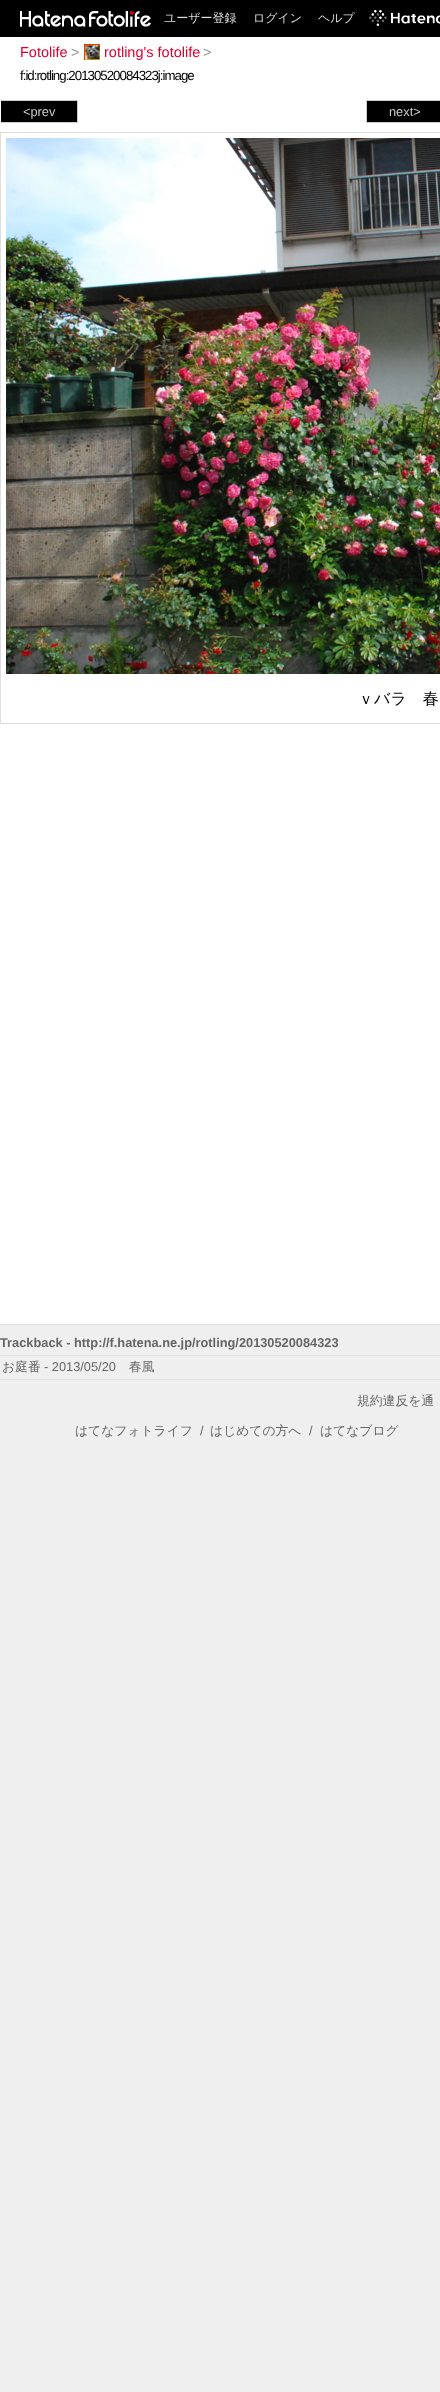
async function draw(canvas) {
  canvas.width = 440;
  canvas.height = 2392;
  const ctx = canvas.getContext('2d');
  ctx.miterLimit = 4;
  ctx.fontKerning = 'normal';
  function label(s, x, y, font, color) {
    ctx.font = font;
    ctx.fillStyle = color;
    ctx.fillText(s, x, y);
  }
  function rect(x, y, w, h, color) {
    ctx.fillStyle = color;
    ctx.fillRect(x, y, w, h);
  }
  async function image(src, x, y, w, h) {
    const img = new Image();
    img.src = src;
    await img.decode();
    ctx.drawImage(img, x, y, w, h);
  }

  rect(0, 0, 440, 2392, '#efefef');
  rect(0, 0, 440, 37, '#000');
  await image('assets/img1.png', 20, 11, 66, 16);
  await image('assets/img2.png', 89, 11, 62, 16);
  label('ユーザー登録', 164, 22, '500 12px WenQuanYi Zen Hei', '#ddd');
  label('ログイン', 253, 22, '500 12px WenQuanYi Zen Hei', '#ddd');
  label('ヘルプ', 318, 22, '500 12px WenQuanYi Zen Hei', '#ddd');
  await image('assets/img3.png', 369, 10, 71, 16);
  rect(0, 37, 440, 1287, '#fff');
  label('Fotolife', 20, 57, '14.5px Liberation Sans', '#de002f');
  label('>', 71, 57, '14.5px Liberation Sans', '#999');
  await image('assets/img4.png', 84, 44, 16, 16);
  label('rotling\'s fotolife', 104, 57, '14.5px Liberation Sans', '#de002f');
  label('>', 203, 57, '14.5px Liberation Sans', '#999');
  ctx.letterSpacing = '-1px';
  label('f:id:rotling:20130520084323j:image', 20, 80, '13.3px Liberation Sans', '#000');
  rect(0, 1324, 440, 1, '#dedede');
  rect(1, 101, 76, 21, '#000');
  rect(1, 100, 77, 1, '#ccc');
  rect(77, 100, 1, 23, '#ccc');
  rect(1, 122, 77, 1, '#ccc');
  ctx.letterSpacing = '0px';
  label('<prev', 23, 116, '12.8px Liberation Sans', '#ccc');
  rect(367, 101, 73, 21, '#000');
  rect(366, 100, 74, 1, '#ccc');
  rect(366, 122, 74, 1, '#ccc');
  rect(366, 100, 1, 23, '#ccc');
  label('next>', 389, 116, '12.8px Liberation Sans', '#ccc');
  ctx.strokeStyle = '#dedede';
  ctx.strokeRect(0.5, 132.5, 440, 591);
  await image('assets/img5.png', 6, 138, 434, 536);
  label('ｖバラ　春', 358, 704, '500 16px WenQuanYi Zen Hei', '#000');
  label('Trackback - http://f.hatena.ne.jp/rotling/20130520084323', 0, 1347, 'bold 12.8px Liberation Sans', '#666');
  rect(0, 1355, 440, 1, '#e1e1e1');
  rect(0, 1379, 440, 1, '#e1e1e1');
  label('お庭番', 2, 1371, '500 12.8px WenQuanYi Zen Hei', '#666');
  label('- 2013/05/20', 44, 1371, '12.8px Liberation Sans', '#666');
  label('春風', 129, 1371, '500 12.8px WenQuanYi Zen Hei', '#666');
  label('規約違反を通', 357, 1405, '500 12.8px WenQuanYi Zen Hei', '#666');
  label('はてなフォトライフ', 75, 1435, '500 12.8px WenQuanYi Zen Hei', '#666');
  label('/', 200, 1435, '12.8px Liberation Sans', '#666');
  label('はじめての方へ', 210, 1435, '500 12.8px WenQuanYi Zen Hei', '#666');
  label('/', 309, 1435, '12.8px Liberation Sans', '#666');
  label('はてなブログ', 320, 1435, '500 12.8px WenQuanYi Zen Hei', '#666');
}

draw(document.querySelector('canvas'));
